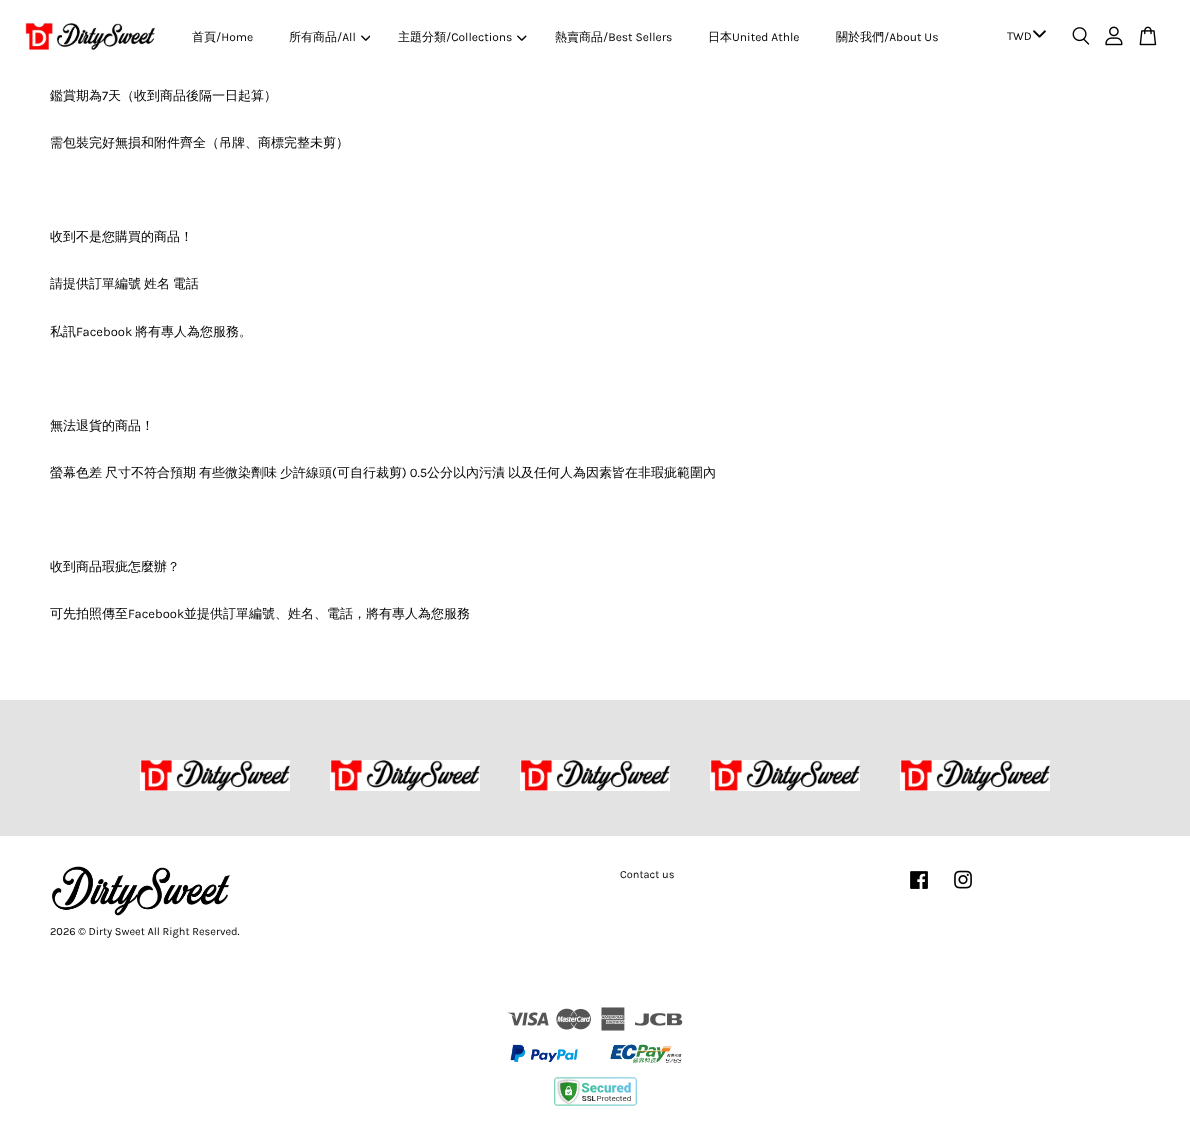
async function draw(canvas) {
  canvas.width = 1190;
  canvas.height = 1134;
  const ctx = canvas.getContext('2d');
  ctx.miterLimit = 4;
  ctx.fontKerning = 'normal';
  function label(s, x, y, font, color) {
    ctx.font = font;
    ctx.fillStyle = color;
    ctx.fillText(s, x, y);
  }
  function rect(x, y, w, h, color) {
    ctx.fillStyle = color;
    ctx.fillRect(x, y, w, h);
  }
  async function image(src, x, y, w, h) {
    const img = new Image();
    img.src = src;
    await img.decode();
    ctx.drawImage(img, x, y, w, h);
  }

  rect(0, 0, 1190, 1134, '#fff');
  await image('assets/img1.png', 25, 23, 130, 28);
  label('首頁', 192, 41, '500 12px WenQuanYi Zen Hei', '#000');
  label('/Home', 216, 41, '12px Karla', '#000');
  label('所有商品', 289, 41, '500 12px WenQuanYi Zen Hei', '#000');
  label('/All', 337, 41, '12px Karla', '#000');
  await image('assets/img2.png', 361, 35, 9, 6);
  label('主題分類', 398, 41, '500 12px WenQuanYi Zen Hei', '#000');
  label('/Collections', 446, 41, '12px Karla', '#000');
  await image('assets/img3.png', 517, 35, 10, 6);
  label('熱賣商品', 555, 41, '500 12px WenQuanYi Zen Hei', '#000');
  label('/Best Sellers', 603, 41, '12px Karla', '#000');
  label('日本', 708, 41, '500 12px WenQuanYi Zen Hei', '#000');
  label('United Athle', 732, 41, '12px Karla', '#000');
  label('關於我們', 836, 41, '500 12px WenQuanYi Zen Hei', '#000');
  label('/About Us', 884, 41, '12px Karla', '#000');
  label('TWD', 1007, 40, '12px Karla', '#000');
  await image('assets/img4.png', 1033, 30, 13, 8);
  await image('assets/img5.png', 1072, 27, 18, 18);
  await image('assets/img6.png', 1105, 26, 18, 20);
  await image('assets/img7.png', 1139, 26, 18, 20);
  label('鑑賞期為', 50, 100, '500 13px WenQuanYi Zen Hei', '#000');
  label('7', 102, 100, '13px Karla', '#000');
  label('天（收到商品後隔一日起算）', 108, 100, '500 13px WenQuanYi Zen Hei', '#000');
  label('需包裝完好無損和附件齊全（吊牌、商標完整未剪）', 50, 147, '500 13px WenQuanYi Zen Hei', '#000');
  label('收到不是您購買的商品！', 50, 241, '500 13px WenQuanYi Zen Hei', '#000');
  ctx.wordSpacing = '-1px';
  label('請提供訂單編號 姓名 電話', 50, 288, '500 13px WenQuanYi Zen Hei', '#000');
  ctx.wordSpacing = '0px';
  label('私訊', 50, 336, '500 13px WenQuanYi Zen Hei', '#000');
  label('Facebook', 76, 336, '13px Karla', '#000');
  label('將有專人為您服務。', 135, 336, '500 13px WenQuanYi Zen Hei', '#000');
  label('無法退貨的商品！', 50, 430, '500 13px WenQuanYi Zen Hei', '#000');
  label('螢幕色差', 50, 477, '500 13px WenQuanYi Zen Hei', '#000');
  label('尺寸不符合預期', 105, 477, '500 13px WenQuanYi Zen Hei', '#000');
  label('有些微染劑味', 199, 477, '500 13px WenQuanYi Zen Hei', '#000');
  label('少許線頭', 280, 477, '500 13px WenQuanYi Zen Hei', '#000');
  label('(', 332, 477, '13px Karla', '#000');
  label('可自行裁剪', 337, 477, '500 13px WenQuanYi Zen Hei', '#000');
  label(') 0.5', 402, 477, '13px Karla', '#000');
  label('公分以內污漬', 427, 477, '500 13px WenQuanYi Zen Hei', '#000');
  label('以及任何人為因素皆在非瑕疵範圍內', 508, 477, '500 13px WenQuanYi Zen Hei', '#000');
  label('收到商品瑕疵怎麼辦？', 50, 571, '500 13px WenQuanYi Zen Hei', '#000');
  label('可先拍照傳至', 50, 618, '500 13px WenQuanYi Zen Hei', '#000');
  label('Facebook', 128, 618, '13px Karla', '#000');
  label('並提供訂單編號、姓名、電話，將有專人為您服務', 184, 618, '500 13px WenQuanYi Zen Hei', '#000');
  rect(0, 700, 1190, 136, '#e3e3e3');
  await image('assets/img8.png', 140, 760, 150, 31);
  await image('assets/img9.png', 330, 760, 150, 31);
  await image('assets/img10.png', 520, 760, 150, 31);
  await image('assets/img8.png', 710, 760, 150, 31);
  await image('assets/img8.png', 900, 760, 150, 31);
  label('Contact us', 620, 878, '11px Karla', '#000');
  await image('assets/img11.png', 910, 871, 18, 18);
  await image('assets/img12.png', 954, 870, 18, 19);
  await image('assets/img13.png', 52, 866, 178, 50);
  label('2026 © Dirty Sweet All Right Reserved.', 50, 935, '11px Karla', '#000');
  await image('assets/img14.png', 508, 1012, 41, 14);
  await image('assets/img15.png', 556, 1008, 35, 22);
  await image('assets/img16.png', 601, 1007, 24, 24);
  await image('assets/img17.png', 635, 1013, 48, 13);
  await image('assets/img18.png', 510, 1044, 68, 18);
  await image('assets/img19.png', 610, 1044, 72, 19);
  await image('assets/img20.png', 554, 1077, 83, 29);
}

draw(document.querySelector('canvas'));
